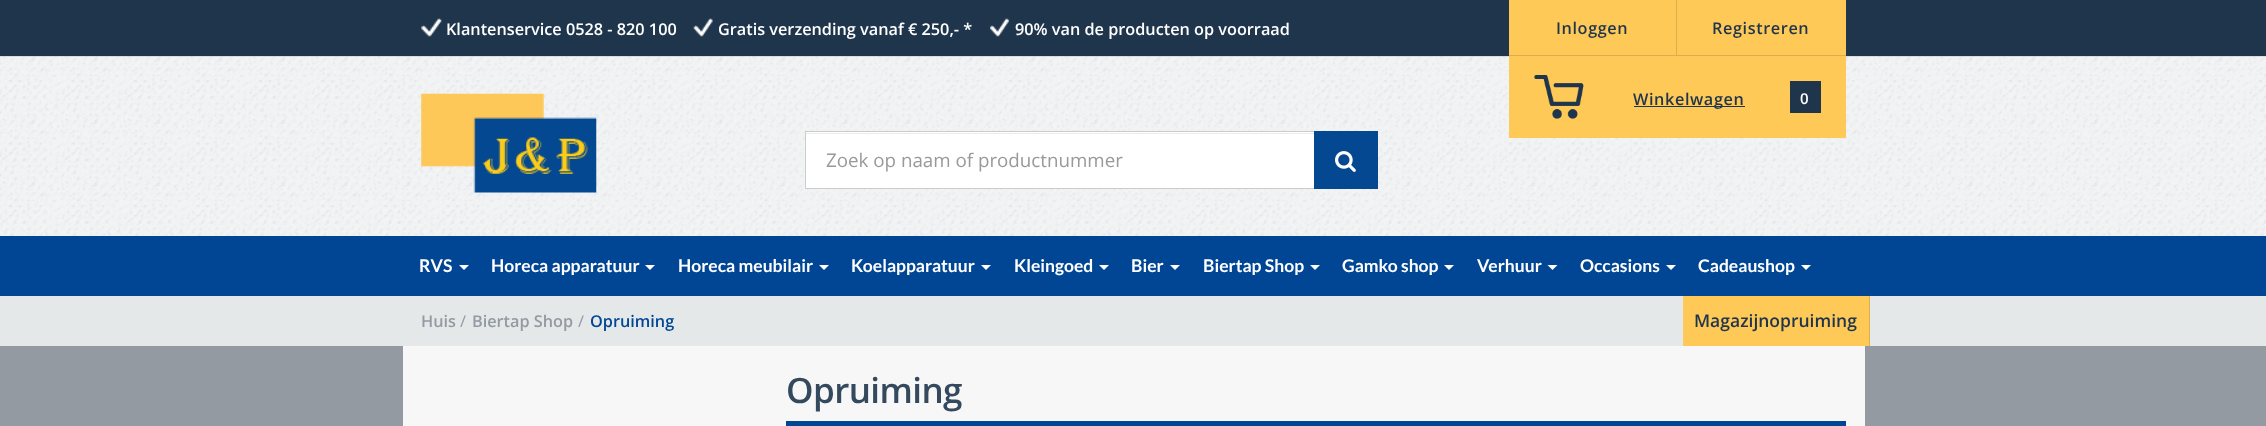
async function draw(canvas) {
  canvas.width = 2266;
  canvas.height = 426;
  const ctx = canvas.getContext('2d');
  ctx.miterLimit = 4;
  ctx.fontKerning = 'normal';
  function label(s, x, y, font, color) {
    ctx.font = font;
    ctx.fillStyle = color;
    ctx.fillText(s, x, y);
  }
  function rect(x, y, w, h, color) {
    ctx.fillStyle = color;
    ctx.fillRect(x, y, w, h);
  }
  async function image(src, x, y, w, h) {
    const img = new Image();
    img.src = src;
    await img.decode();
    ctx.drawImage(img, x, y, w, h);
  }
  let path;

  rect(0, 0, 2266, 426, '#939aa1');
  rect(0, 0, 2266, 56, '#1f354c');
  await image('assets/img1.png', 421, 18, 21, 19);
  label('Klantenservice 0528 - 820 100', 446, 35, '600 16.25px Open Sans', '#fff');
  await image('assets/img2.png', 693, 18, 20, 19);
  label('Gratis verzending vanaf € 250,- *', 718, 35, '600 16.25px Open Sans', '#fff');
  await image('assets/img3.png', 990, 18, 19, 19);
  label('90% van de producten op voorraad', 1015, 35, '600 16.25px Open Sans', '#fff');
  await image('assets/img5.png', 0, 56, 2266, 180);
  rect(1509, 0, 337, 138, '#fec957');
  rect(1509, 55, 337, 1, '#dbae4f');
  ctx.letterSpacing = '0.6px';
  label('Inloggen', 1556, 34, '600 16.25px Open Sans', '#1f354c');
  rect(1676, 0, 1, 56, '#dbae4f');
  label('Registreren', 1712, 34, '600 16.25px Open Sans', '#1f354c');
  await image('assets/img4.png', 1534, 75, 50, 44);
  rect(1634, 106, 111, 1, '#1f354c');
  label('Winkelwagen', 1633, 105, '600 16.25px Open Sans', '#1f354c');
  rect(1790, 81, 31, 32, '#1f354c');
  label('0', 1800, 104, '600 15px Open Sans', '#fff');
  await image('assets/img6.png', 421, 93, 176, 100);
  rect(806, 132, 508, 56, '#fff');
  rect(806, 133, 508, 1, '#ececec');
  ctx.strokeStyle = '#ccc';
  ctx.strokeRect(805.5, 131.5, 509, 57);
  ctx.letterSpacing = '0px';
  label('Zoek op naam of productnummer', 826, 167, '18.75px Open Sans', '#999');
  rect(1314, 131, 64, 58, '#044891');
  await image('assets/img7.png', 1335, 151, 21, 21);
  rect(0, 236, 2266, 60, '#014694');
  label('RVS', 419, 272, 'bold 17.5px Lato', '#fff');
  path = new Path2D('M459 265H469L464 270Z');
  ctx.fill(path);
  label('Horeca apparatuur', 491, 272, 'bold 17.5px Lato', '#fff');
  path = new Path2D('M645 265H655L650 270Z');
  ctx.fill(path);
  label('Horeca meubilair', 678, 272, 'bold 17.5px Lato', '#fff');
  path = new Path2D('M819 265H829L824 270Z');
  ctx.fill(path);
  label('Koelapparatuur', 851, 272, 'bold 17.5px Lato', '#fff');
  path = new Path2D('M981 265H991L986 270Z');
  ctx.fill(path);
  label('Kleingoed', 1014, 272, 'bold 17.5px Lato', '#fff');
  path = new Path2D('M1099 265H1109L1104 270Z');
  ctx.fill(path);
  label('Bier', 1131, 272, 'bold 17.5px Lato', '#fff');
  path = new Path2D('M1170 265H1180L1175 270Z');
  ctx.fill(path);
  label('Biertap Shop', 1203, 272, 'bold 17.5px Lato', '#fff');
  path = new Path2D('M1310 265H1320L1315 270Z');
  ctx.fill(path);
  label('Gamko shop', 1342, 272, 'bold 17.5px Lato', '#fff');
  path = new Path2D('M1444 265H1454L1449 270Z');
  ctx.fill(path);
  label('Verhuur', 1477, 272, 'bold 17.5px Lato', '#fff');
  path = new Path2D('M1547.5 265H1557.5L1552.5 270Z');
  ctx.fill(path);
  label('Occasions', 1580, 272, 'bold 17.5px Lato', '#fff');
  path = new Path2D('M1666 265H1676L1671 270Z');
  ctx.fill(path);
  label('Cadeaushop', 1698, 272, 'bold 17.5px Lato', '#fff');
  path = new Path2D('M1801 265H1811L1806 270Z');
  ctx.fill(path);
  rect(0, 296, 2266, 50, '#e5e8e9');
  label('Huis', 421, 327, '600 16.25px Open Sans', '#939aa1');
  label('/', 460, 327, '16.25px Open Sans', '#939aa1');
  label('Biertap Shop', 472, 327, '600 16.25px Open Sans', '#939aa1');
  label('/', 578, 327, '16.25px Open Sans', '#939aa1');
  label('Opruiming', 590, 327, '600 16.25px Open Sans', '#014694');
  rect(1683, 296, 186, 50, '#fec957');
  rect(1869, 296, 1, 50, '#dbae4f');
  label('Magazijnopruiming', 1694, 327, '600 17.5px Open Sans', '#1f354c');
  rect(403, 346, 1462, 80, '#f7f7f7');
  ctx.letterSpacing = '-0.6px';
  label('Opruiming', 786, 403, '600 35px Open Sans', '#34495e');
  rect(786, 421, 1060, 5, '#014694');
}

draw(document.querySelector('canvas'));
